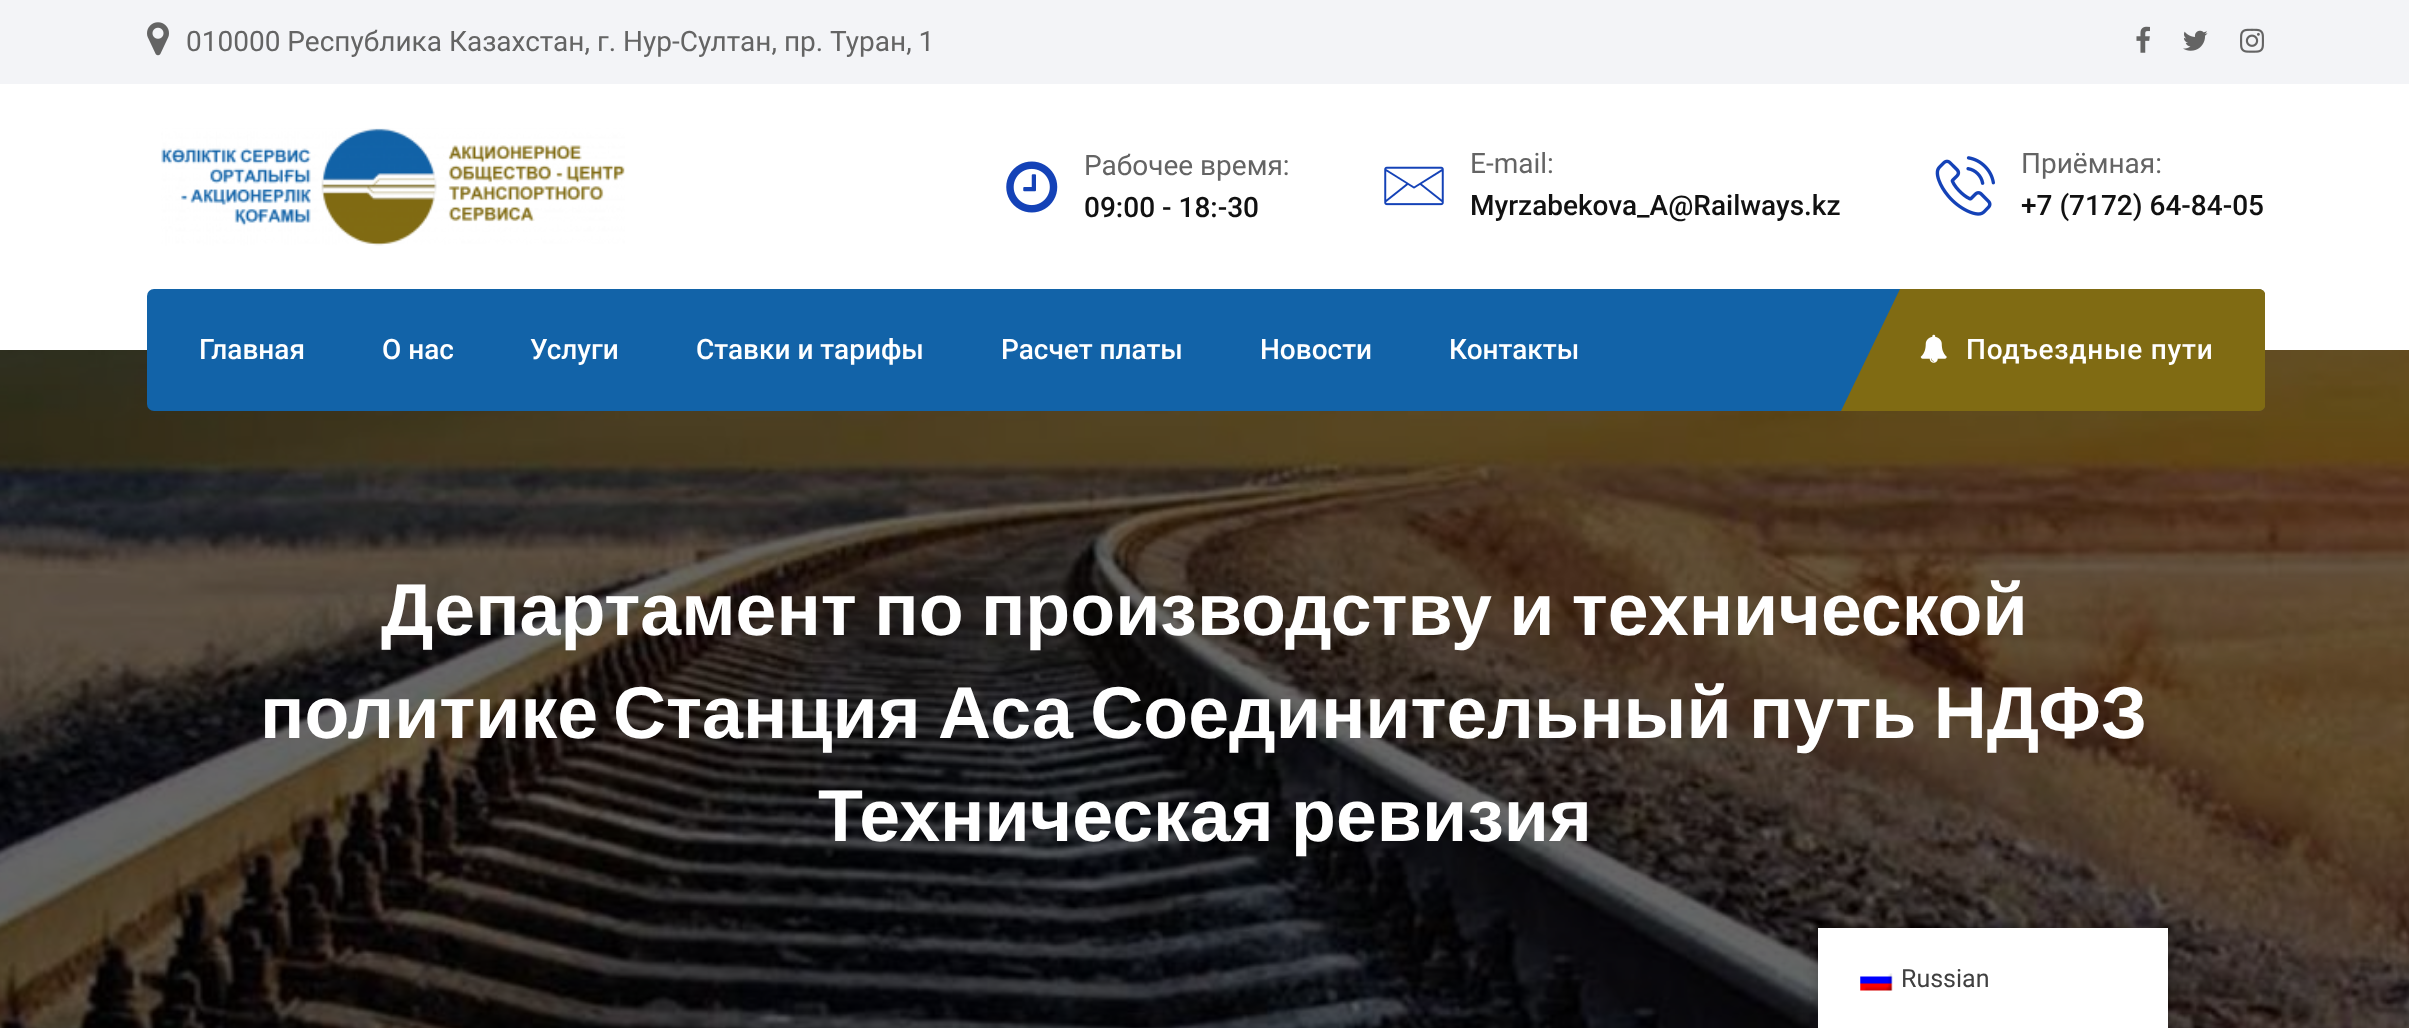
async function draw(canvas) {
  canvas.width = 2409;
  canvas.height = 1028;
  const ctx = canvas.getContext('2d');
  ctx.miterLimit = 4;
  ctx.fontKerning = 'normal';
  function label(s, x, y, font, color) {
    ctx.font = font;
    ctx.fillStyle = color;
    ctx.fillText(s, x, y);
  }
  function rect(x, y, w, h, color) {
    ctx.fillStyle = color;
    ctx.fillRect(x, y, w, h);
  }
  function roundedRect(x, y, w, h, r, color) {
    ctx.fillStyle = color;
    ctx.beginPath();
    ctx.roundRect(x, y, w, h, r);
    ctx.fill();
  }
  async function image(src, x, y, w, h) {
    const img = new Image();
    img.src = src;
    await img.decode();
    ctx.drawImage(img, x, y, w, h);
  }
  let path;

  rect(0, 0, 2409, 1028, '#fff');
  rect(0, 0, 2409, 84, '#f3f4f7');
  await image('assets/img1.png', 147, 22, 22, 34);
  label('010000 Республика Казахстан, г. Нур-Султан, пр. Туран, 1', 186, 51, '28px Roboto', '#646464');
  await image('assets/img2.png', 2136, 26, 14, 27);
  await image('assets/img3.png', 2183, 30, 25, 21);
  await image('assets/img4.png', 2240, 28, 24, 25);
  await image('assets/img5.png', 161, 128, 464, 118);
  await image('assets/img6.png', 1006, 161, 52, 52);
  label('Рабочее время:', 1084, 175, '28px Roboto', '#646464');
  label('09:00 - 18:-30', 1084, 217, '500 28px Roboto', '#111');
  await image('assets/img7.png', 1384, 166, 60, 40);
  label('E-mail:', 1470, 173, '28px Roboto', '#646464');
  label('Myrzabekova_A@Railways.kz', 1470, 215, '500 28px Roboto', '#111');
  await image('assets/img8.png', 1935, 156, 60, 60);
  label('Приёмная:', 2021, 173, '28px Roboto', '#646464');
  label('+7 (7172) 64-84-05', 2021, 215, '500 28px Roboto', '#111');
  await image('assets/img10.png', 0, 350, 2409, 678);
  roundedRect(147, 289, 2118, 122, 7, '#1263a8');
  label('Главная', 199, 359, '500 28px Roboto', '#fff');
  label('О нас', 382, 359, '500 28px Roboto', '#fff');
  label('Услуги', 530, 359, '500 28px Roboto', '#fff');
  label('Ставки и тарифы', 696, 359, '500 28px Roboto', '#fff');
  label('Расчет платы', 1001, 359, '500 28px Roboto', '#fff');
  label('Новости', 1260, 359, '500 28px Roboto', '#fff');
  label('Контакты', 1449, 359, '500 28px Roboto', '#fff');
  ctx.fillStyle = '#806b13';
  path = new Path2D('M1841 411L1900 289H2259C2262 289 2264 291 2265 293V407C2264 409 2262 411 2259 411Z');
  ctx.fill(path);
  await image('assets/img9.png', 1920, 334, 27, 29);
  ctx.letterSpacing = '0.75px';
  label('Подъездные пути', 1966, 359, '500 28px Roboto', '#fff');
  ctx.letterSpacing = '0px';
  ctx.wordSpacing = '-3px';
  label('Департамент по производству и технической', 381, 635, 'bold 73.5px Liberation Sans', '#fff');
  ctx.wordSpacing = '0px';
  label('политике', 260, 738, 'bold 73.5px Liberation Sans', '#fff');
  ctx.wordSpacing = '-3px';
  label('Станция Аса Соединительный путь НДФЗ', 613, 738, 'bold 73.5px Liberation Sans', '#fff');
  label('Техническая ревизия', 818, 841, 'bold 73.5px Liberation Sans', '#fff');
  ctx.fillStyle = '#00000040';
  ctx.filter = 'blur(7px)';
  ctx.beginPath();
  ctx.rect(1818, 928, 350, 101);
  ctx.fill();
  ctx.filter = 'none';
  rect(1818, 928, 350, 100, '#fff');
  await image('assets/img11.png', 1860, 973, 33, 18);
  ctx.wordSpacing = '0px';
  label('Russian', 1901, 987, '25px Roboto', '#404040');
}

draw(document.querySelector('canvas'));
